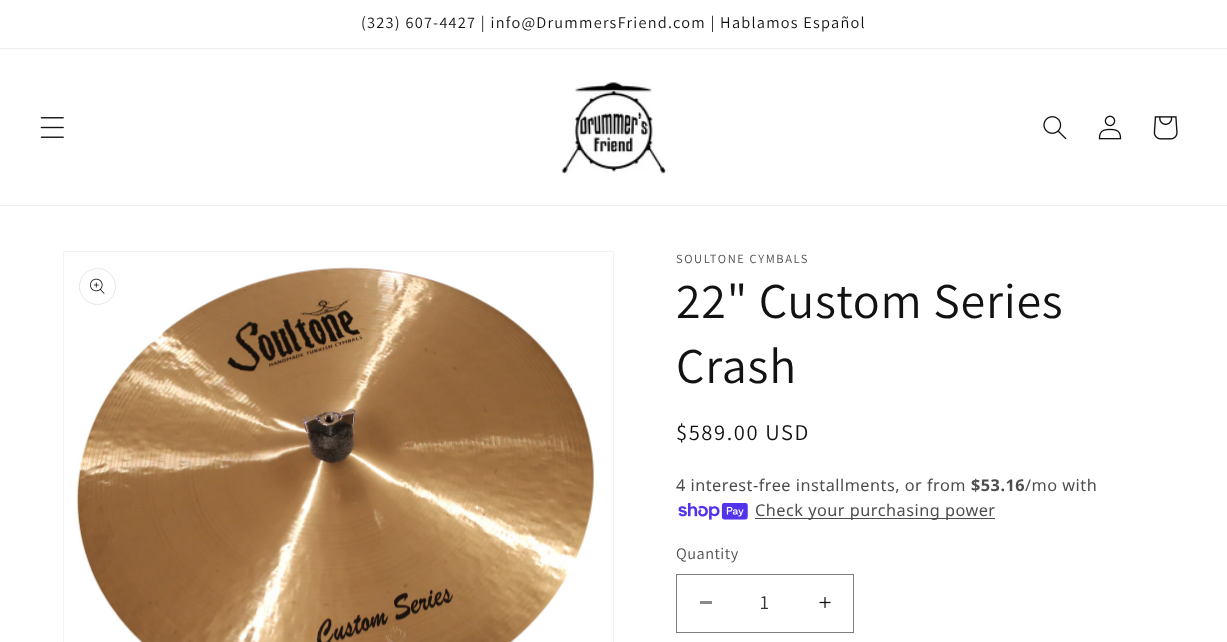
async function draw(canvas) {
  canvas.width = 1227;
  canvas.height = 642;
  const ctx = canvas.getContext('2d');
  ctx.miterLimit = 4;
  ctx.fontKerning = 'normal';
  function label(s, x, y, font, color) {
    ctx.font = font;
    ctx.fillStyle = color;
    ctx.fillText(s, x, y);
  }
  function rect(x, y, w, h, color) {
    ctx.fillStyle = color;
    ctx.fillRect(x, y, w, h);
  }
  async function image(src, x, y, w, h) {
    const img = new Image();
    img.src = src;
    await img.decode();
    ctx.drawImage(img, x, y, w, h);
  }

  rect(0, 0, 1227, 642, '#fff');
  rect(0, 48, 1227, 1, '#ececec');
  ctx.letterSpacing = '1.25px';
  label('(323) 607-4427 | info@DrummersFriend.com | Hablamos Español', 361, 28, '16.25px Assistant', '#121212');
  rect(0, 205, 1227, 1, '#ececec');
  await image('assets/img1.png', 40, 117, 24, 21);
  await image('assets/img2.png', 560, 82, 106, 92);
  await image('assets/img3.png', 1043, 116, 24, 24);
  await image('assets/img4.png', 1098, 115, 24, 25);
  await image('assets/img5.png', 1153, 116, 25, 24);
  ctx.strokeStyle = '#f3f3f3';
  ctx.strokeRect(63.5, 251.5, 550, 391);
  await image('assets/img6.png', 76, 267, 519, 375);
  ctx.beginPath();
  ctx.arc(97.5, 286.5, 18, 0, 2 * Math.PI);
  ctx.strokeStyle = '#e7e7e7';
  ctx.stroke();
  await image('assets/img7.png', 90, 278, 15, 16);
  ctx.letterSpacing = '1.6px';
  label('SOULTONE CYMBALS', 676, 263, '12.5px Assistant', '#4d4d4d');
  ctx.letterSpacing = '0.75px';
  label('22" Custom Series', 676, 318, '50px Assistant', '#121212');
  label('Crash', 676, 383, '50px Assistant', '#121212');
  ctx.letterSpacing = '1.6px';
  label('$589.00 USD', 676, 440, '22.5px Assistant', '#121212');
  ctx.letterSpacing = '0.5px';
  label('4 interest-free installments, or from', 676, 491, '16.25px Noto Sans', '#4d4d4d');
  label('$53.16', 971, 491, 'bold 16.25px Noto Sans', '#4d4d4d');
  label('/mo with', 1025, 491, '16.25px Noto Sans', '#4d4d4d');
  await image('assets/img8.png', 678, 503, 70, 17);
  rect(755, 518, 240, 1, '#4d4d4d');
  label('Check your purchasing power', 755, 516, '16.25px Noto Sans', '#4d4d4d');
  label('Quantity', 676, 559, '16.25px Assistant', '#4d4d4d');
  rect(700, 601, 12, 3, '#898989');
  await image('assets/img9.png', 819, 596, 12, 13);
  ctx.strokeStyle = '#7d7d7d';
  ctx.strokeRect(676.5, 574.5, 177, 58);
  ctx.letterSpacing = '0px';
  label('1', 760, 609, '20px Assistant', '#363636');
}

draw(document.querySelector('canvas'));
